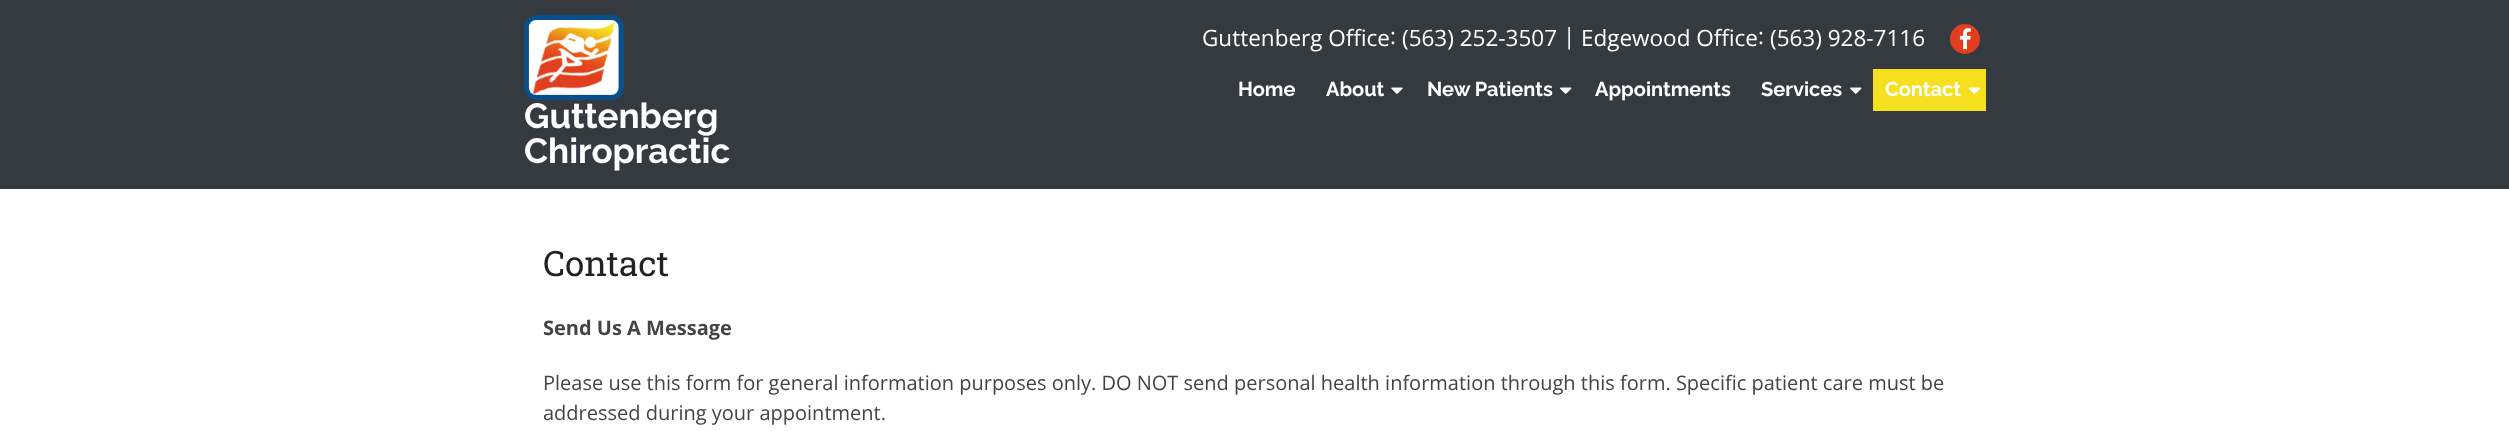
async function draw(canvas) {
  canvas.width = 2509;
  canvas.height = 431;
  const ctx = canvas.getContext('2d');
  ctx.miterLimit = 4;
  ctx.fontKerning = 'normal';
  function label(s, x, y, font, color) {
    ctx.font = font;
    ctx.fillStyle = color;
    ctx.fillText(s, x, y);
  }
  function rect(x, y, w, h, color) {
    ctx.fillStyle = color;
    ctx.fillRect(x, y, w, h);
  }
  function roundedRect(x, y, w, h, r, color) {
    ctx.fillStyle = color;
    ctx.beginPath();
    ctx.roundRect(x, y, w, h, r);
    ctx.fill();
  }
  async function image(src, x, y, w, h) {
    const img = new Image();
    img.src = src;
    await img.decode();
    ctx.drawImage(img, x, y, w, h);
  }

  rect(0, 0, 2509, 431, '#fff');
  rect(0, 0, 2509, 189, '#343a40');
  label('Guttenberg Office', 1202, 46, '22.5px Open Sans', '#fff');
  label(':', 1390, 44, '22.5px Open Sans', '#fff');
  label('(563) 252-3507', 1402, 46, '22.5px Open Sans', '#fff');
  label('|', 1563, 44, '22.5px Open Sans', '#fff');
  label('Edgewood Office', 1581, 46, '22.5px Open Sans', '#fff');
  label(':', 1758, 44, '22.5px Open Sans', '#fff');
  label('(563) 928-7116', 1770, 46, '22.5px Open Sans', '#fff');
  ctx.fillStyle = '#e13e20';
  ctx.beginPath();
  ctx.arc(1965, 39, 15, 0, 2 * Math.PI);
  ctx.fill();
  await image('assets/img1.png', 1959, 28, 12, 22);
  label('Home', 1238, 96, 'bold 20px Raleway', '#fff');
  label('About', 1326, 96, 'bold 20px Raleway', '#fff');
  await image('assets/img2.png', 1391, 87, 12, 7);
  label('New Patients', 1427, 96, 'bold 20px Raleway', '#fff');
  await image('assets/img3.png', 1560, 87, 12, 7);
  label('Appointments', 1595, 96, 'bold 20px Raleway', '#fff');
  label('Services', 1761, 96, 'bold 20px Raleway', '#fff');
  await image('assets/img3.png', 1850, 87, 12, 7);
  rect(1873, 69, 113, 42, '#f6df1e');
  label('Contact', 1885, 96, 'bold 20px Raleway', '#fff');
  await image('assets/img4.png', 1968, 87, 13, 7);
  roundedRect(524, 15, 100, 85, 13, '#094f8b');
  await image('assets/img5.png', 528, 20, 91, 75);
  label('Guttenberg', 524, 128, 'bold 35px Raleway', '#fff');
  label('Chiropractic', 524, 163, 'bold 35px Raleway', '#fff');
  label('Contact', 543, 276, '35px Roboto Slab', '#222');
  label('Send Us A Message', 543, 335, 'bold 20px Open Sans', '#444');
  label('Please use this form for general information purposes only. DO NOT send personal health information through this form. Specific patient care must be', 543, 390, '20px Open Sans', '#444');
  label('addressed during your appointment.', 543, 420, '20px Open Sans', '#444');
}

draw(document.querySelector('canvas'));
